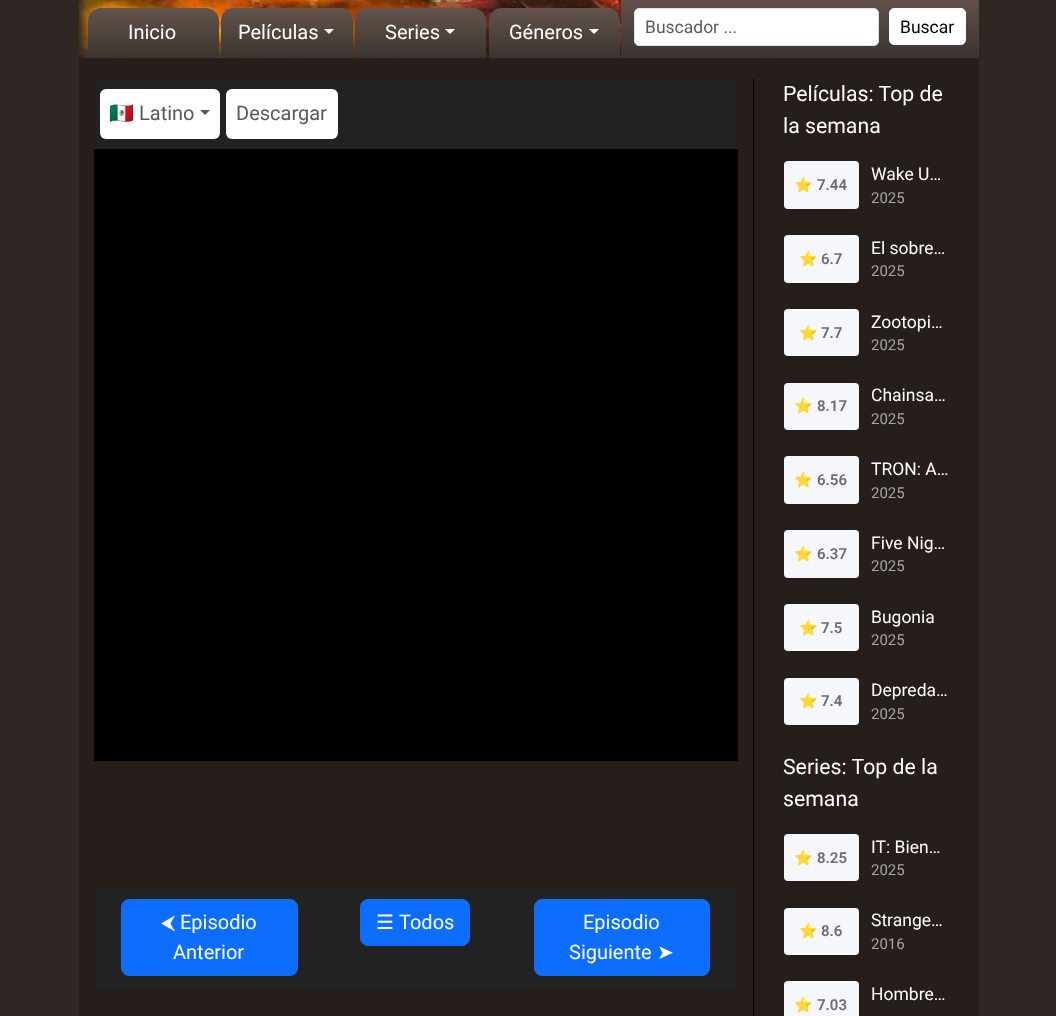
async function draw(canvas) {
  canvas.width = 1056;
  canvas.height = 1016;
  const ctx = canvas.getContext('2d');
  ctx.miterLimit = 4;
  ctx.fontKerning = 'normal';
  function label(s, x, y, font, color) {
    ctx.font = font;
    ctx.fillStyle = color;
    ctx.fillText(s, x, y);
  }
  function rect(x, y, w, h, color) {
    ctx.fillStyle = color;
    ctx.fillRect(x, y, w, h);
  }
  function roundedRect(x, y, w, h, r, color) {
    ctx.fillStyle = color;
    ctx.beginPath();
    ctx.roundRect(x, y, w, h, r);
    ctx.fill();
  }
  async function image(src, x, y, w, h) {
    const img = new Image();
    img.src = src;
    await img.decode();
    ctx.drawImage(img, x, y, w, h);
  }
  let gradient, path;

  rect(0, 0, 1056, 1016, '#2f2723');
  rect(79, 58, 900, 958, '#251e1b');
  await image('assets/img1.png', 78, 0, 901, 59);
  gradient = ctx.createLinearGradient(153, 7.5, 153, 58);
  gradient.addColorStop(0, '#63544c');
  gradient.addColorStop(1, '#3b3430');
  ctx.fillStyle = gradient;
  ctx.beginPath();
  ctx.roundRect(88, 8, 131, 50, [13, 13, 0, 0]);
  ctx.fill();
  label('Inicio', 128, 39, '20px Roboto', '#fff');
  gradient = ctx.createLinearGradient(287, 7.5, 287, 58);
  gradient.addColorStop(0, '#63544c');
  gradient.addColorStop(1, '#3b3430');
  ctx.fillStyle = gradient;
  ctx.beginPath();
  ctx.roundRect(221, 8, 132, 50, [13, 13, 0, 0]);
  ctx.fill();
  label('Películas', 238, 39, '20px Roboto', '#fff');
  path = new Path2D('M324 29H334L329 34Z');
  ctx.fill(path);
  gradient = ctx.createLinearGradient(421, 7.5, 421, 58);
  gradient.addColorStop(0, '#63544c');
  gradient.addColorStop(1, '#3b3430');
  ctx.fillStyle = gradient;
  ctx.beginPath();
  ctx.roundRect(355, 8, 131, 50, [13, 13, 0, 0]);
  ctx.fill();
  label('Series', 385, 39, '20px Roboto', '#fff');
  path = new Path2D('M445 29H455L450 34Z');
  ctx.fill(path);
  gradient = ctx.createLinearGradient(554, 7.5, 554, 58);
  gradient.addColorStop(0, '#63544c');
  gradient.addColorStop(1, '#3b3430');
  ctx.fillStyle = gradient;
  ctx.beginPath();
  ctx.roundRect(489, 8, 131, 50, [13, 13, 0, 0]);
  ctx.fill();
  label('Géneros', 509, 39, '20px Roboto', '#fff');
  path = new Path2D('M589 29H599L594 34Z');
  ctx.fill(path);
  gradient = ctx.createLinearGradient(800, -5, 800, 58);
  gradient.addColorStop(0, '#63544c');
  gradient.addColorStop(1, '#3b3430');
  ctx.fillStyle = gradient;
  ctx.fillRect(621, 0, 358, 58);
  ctx.fillStyle = '#fff';
  ctx.beginPath();
  ctx.roundRect(634.5, 8.5, 244, 37, 4.5);
  ctx.fill();
  ctx.strokeStyle = '#dee2e6';
  ctx.stroke();
  label('Buscador ...', 645, 33, '17.5px Roboto', '#595c5f');
  ctx.fillStyle = '#fff';
  ctx.beginPath();
  ctx.roundRect(889.5, 8.5, 76, 36, 4.5);
  ctx.fill();
  ctx.strokeStyle = '#f8f9fa';
  ctx.stroke();
  label('Buscar', 900, 33, '17.5px Roboto', '#000');
  rect(753, 79, 1, 937, '#000');
  rect(94, 79, 644, 70, '#222');
  roundedRect(100, 89, 120, 50, 6, '#fff');
  label('🇲🇽', 109, 120, '20px Noto Color Emoji', '#595959');
  label('Latino', 139, 120, '20px Roboto', '#595959');
  path = new Path2D('M200 110H210L205 115Z');
  ctx.fill(path);
  roundedRect(226, 89, 112, 50, 6, '#fff');
  label('Descargar', 236, 120, '20px Roboto', '#595959');
  rect(94, 149, 644, 612, '#000');
  rect(94, 886, 644, 103, '#222');
  ctx.fillStyle = '#0d6efd';
  ctx.beginPath();
  ctx.roundRect(121.5, 899.5, 176, 76, 7.5);
  ctx.fill();
  ctx.strokeStyle = '#0d6efd';
  ctx.stroke();
  label('⮜', 161, 929, '20px FreeSans', '#fff');
  label('Episodio', 180, 929, '20px Roboto', '#fff');
  label('Anterior', 173, 959, '20px Roboto', '#fff');
  ctx.fillStyle = '#0d6efd';
  ctx.beginPath();
  ctx.roundRect(360.5, 899.5, 109, 46, 7.5);
  ctx.fill();
  ctx.stroke();
  label('☰', 376, 929, '20px DejaVu Sans', '#fff');
  label('Todos', 399, 929, '20px Roboto', '#fff');
  ctx.fillStyle = '#0d6efd';
  ctx.beginPath();
  ctx.roundRect(534.5, 899.5, 175, 76, 7.5);
  ctx.fill();
  ctx.stroke();
  label('Episodio', 583, 929, '20px Roboto', '#fff');
  label('Siguiente', 569, 959, '20px Roboto', '#fff');
  label('➤', 657, 959, '20px DejaVu Sans', '#fff');
  label('Películas: Top de', 783, 101, '21.25px Roboto', '#fff');
  label('la semana', 783, 133, '21.25px Roboto', '#fff');
  roundedRect(784, 161, 75, 48, 4, '#f5f7fa');
  label('⭐', 794, 190, 'bold 15px Noto Color Emoji', '#6c6c6c');
  label('7.44', 817, 190, '600 15px Roboto', '#6c6c6c');
  label('Wake U…', 871, 180, '17.5px Roboto', '#fff');
  label('2025', 871, 203, '15px Roboto', '#a5a5a5');
  path = new Path2D('M784 295.5H949');
  ctx.strokeStyle = '#211b18';
  ctx.lineWidth = 1.2;
  ctx.setLineDash([1.25, 1.25]);
  ctx.stroke(path);
  roundedRect(784, 235, 75, 48, 4, '#f5f7fa');
  label('⭐', 799, 264, 'bold 15px Noto Color Emoji', '#6c6c6c');
  label('6.7', 821, 264, '600 15px Roboto', '#6c6c6c');
  label('El sobre…', 871, 254, '17.5px Roboto', '#fff');
  label('2025', 871, 276, '15px Roboto', '#a5a5a5');
  path = new Path2D('M784 369.5H949');
  ctx.stroke(path);
  roundedRect(784, 309, 75, 47, 4, '#f5f7fa');
  label('⭐', 799, 338, 'bold 15px Noto Color Emoji', '#6c6c6c');
  label('7.7', 821, 338, '600 15px Roboto', '#6c6c6c');
  label('Zootopi…', 871, 328, '17.5px Roboto', '#fff');
  label('2025', 871, 350, '15px Roboto', '#a5a5a5');
  roundedRect(784, 383, 75, 47, 4, '#f5f7fa');
  label('⭐', 794, 411, 'bold 15px Noto Color Emoji', '#6c6c6c');
  label('8.17', 817, 411, '600 15px Roboto', '#6c6c6c');
  label('Chainsa…', 871, 401, '17.5px Roboto', '#fff');
  label('2025', 871, 424, '15px Roboto', '#a5a5a5');
  roundedRect(784, 456, 75, 48, 4, '#f5f7fa');
  label('⭐', 794, 485, 'bold 15px Noto Color Emoji', '#6c6c6c');
  label('6.56', 817, 485, '600 15px Roboto', '#6c6c6c');
  label('TRON: A…', 871, 475, '17.5px Roboto', '#fff');
  label('2025', 871, 498, '15px Roboto', '#a5a5a5');
  path = new Path2D('M784 590.5H949');
  ctx.stroke(path);
  roundedRect(784, 530, 75, 48, 4, '#f5f7fa');
  label('⭐', 794, 559, 'bold 15px Noto Color Emoji', '#6c6c6c');
  label('6.37', 817, 559, '600 15px Roboto', '#6c6c6c');
  label('Five Nig…', 871, 549, '17.5px Roboto', '#fff');
  label('2025', 871, 571, '15px Roboto', '#a5a5a5');
  path = new Path2D('M784 664.5H949');
  ctx.stroke(path);
  roundedRect(784, 604, 75, 47, 4, '#f5f7fa');
  label('⭐', 799, 633, 'bold 15px Noto Color Emoji', '#6c6c6c');
  label('7.5', 821, 633, '600 15px Roboto', '#6c6c6c');
  label('Bugonia', 871, 623, '17.5px Roboto', '#fff');
  label('2025', 871, 645, '15px Roboto', '#a5a5a5');
  roundedRect(784, 678, 75, 47, 4, '#f5f7fa');
  label('⭐', 799, 706, 'bold 15px Noto Color Emoji', '#6c6c6c');
  label('7.4', 821, 706, '600 15px Roboto', '#6c6c6c');
  label('Depreda…', 871, 696, '17.5px Roboto', '#fff');
  label('2025', 871, 719, '15px Roboto', '#a5a5a5');
  label('Series: Top de la', 783, 774, '21.25px Roboto', '#fff');
  label('semana', 783, 806, '21.25px Roboto', '#fff');
  path = new Path2D('M784 894.5H949');
  ctx.stroke(path);
  roundedRect(784, 834, 75, 47, 4, '#f5f7fa');
  label('⭐', 794, 863, 'bold 15px Noto Color Emoji', '#6c6c6c');
  label('8.25', 817, 863, '600 15px Roboto', '#6c6c6c');
  label('IT: Bien…', 871, 853, '17.5px Roboto', '#fff');
  label('2025', 871, 875, '15px Roboto', '#a5a5a5');
  roundedRect(784, 908, 75, 47, 4, '#f5f7fa');
  label('⭐', 799, 936, 'bold 15px Noto Color Emoji', '#6c6c6c');
  label('8.6', 821, 936, '600 15px Roboto', '#6c6c6c');
  label('Strange…', 871, 926, '17.5px Roboto', '#fff');
  label('2016', 871, 949, '15px Roboto', '#a5a5a5');
  label('Hombre…', 871, 1000, '17.5px Roboto', '#fff');
  roundedRect(784, 981, 75, 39, 4, '#f5f7fa');
  label('⭐', 794, 1010, 'bold 15px Noto Color Emoji', '#6c6c6c');
  label('7.03', 817, 1010, '600 15px Roboto', '#6c6c6c');
}

draw(document.querySelector('canvas'));
